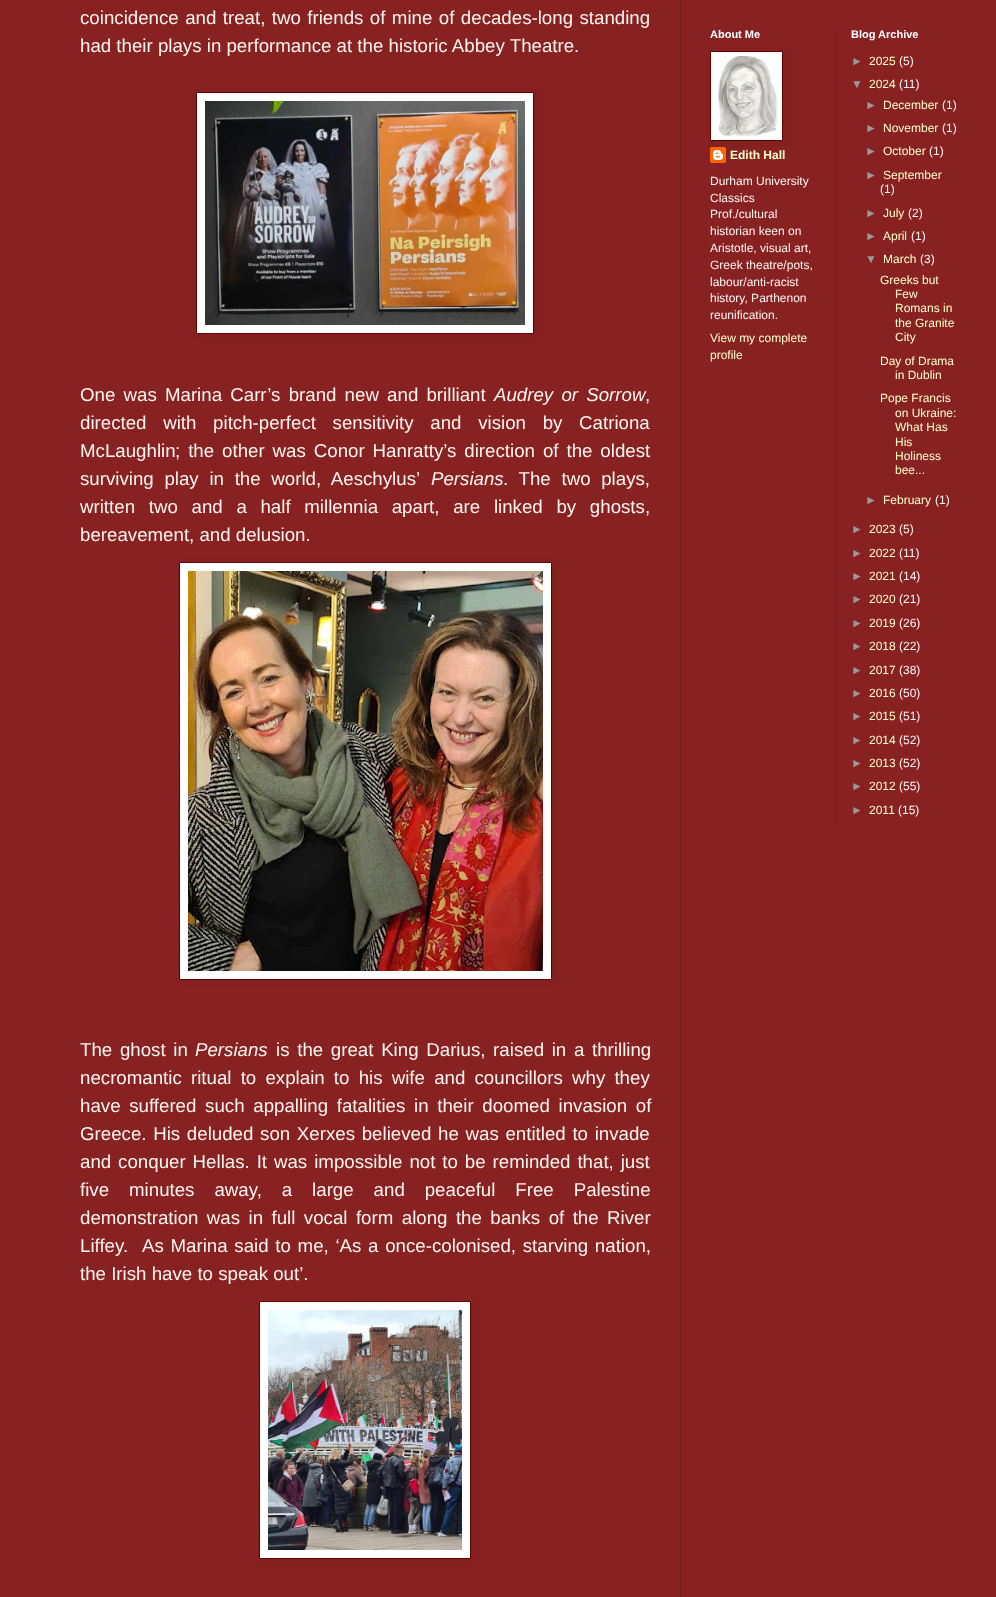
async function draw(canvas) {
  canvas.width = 996;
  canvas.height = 1597;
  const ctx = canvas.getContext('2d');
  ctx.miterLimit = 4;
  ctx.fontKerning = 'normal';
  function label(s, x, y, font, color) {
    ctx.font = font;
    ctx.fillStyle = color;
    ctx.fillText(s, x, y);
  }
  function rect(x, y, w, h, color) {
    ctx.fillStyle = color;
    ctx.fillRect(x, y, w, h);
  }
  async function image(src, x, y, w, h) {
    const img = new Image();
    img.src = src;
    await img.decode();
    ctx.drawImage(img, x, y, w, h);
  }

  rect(0, 0, 996, 1597, '#822');
  rect(680, 0, 1, 1597, '#722');
  ctx.wordSpacing = '1.25px';
  label('coincidence and treat, two friends of mine of decades-long standing', 80, 24, '18.7px Liberation Sans', '#fff5ee');
  ctx.wordSpacing = '0px';
  label('had their plays in performance at the historic Abbey Theatre.', 80, 52, '18.7px Liberation Sans', '#fff5ee');
  ctx.fillStyle = '#0000001a';
  ctx.filter = 'blur(2.5px)';
  ctx.beginPath();
  ctx.rect(197, 93, 338, 242);
  ctx.fill();
  ctx.filter = 'none';
  ctx.fillStyle = '#fff';
  ctx.beginPath();
  ctx.rect(196.5, 92.5, 337, 241);
  ctx.fill();
  ctx.strokeStyle = '#600';
  ctx.stroke();
  await image('assets/img1.png', 205, 101, 320, 224);
  ctx.wordSpacing = '3px';
  label('One was Marina Carr’s brand new and brilliant', 80, 401, '18.7px Liberation Sans', '#fff5ee');
  label('Audrey or Sorrow', 494, 401, 'italic 18.7px Liberation Sans', '#fff5ee');
  ctx.wordSpacing = '0px';
  label(',', 645, 401, '18.7px Liberation Sans', '#fff5ee');
  ctx.wordSpacing = '11.5px';
  label('directed with pitch-perfect sensitivity and vision by Catriona', 80, 429, '18.7px Liberation Sans', '#fff5ee');
  ctx.wordSpacing = '0px';
  label('McLaughlin', 80, 457, '18.7px Liberation Sans', '#fff5ee');
  ctx.wordSpacing = '2.75px';
  label('; the other was Conor Hanratty’s direction of the oldest', 175, 457, '18.7px Liberation Sans', '#fff5ee');
  ctx.wordSpacing = '5.5px';
  label('surviving play in the world, Aeschylus’', 80, 485, '18.7px Liberation Sans', '#fff5ee');
  ctx.wordSpacing = '0px';
  label('Persians', 431, 485, 'italic 18.7px Liberation Sans', '#fff5ee');
  ctx.wordSpacing = '5.5px';
  label('. The two plays,', 503, 485, '18.7px Liberation Sans', '#fff5ee');
  ctx.wordSpacing = '8.5px';
  label('written two and a half millennia apart, are linked by ghosts,', 80, 513, '18.7px Liberation Sans', '#fff5ee');
  ctx.wordSpacing = '0px';
  label('bereavement, and delusion.', 80, 541, '18.7px Liberation Sans', '#fff5ee');
  ctx.fillStyle = '#0000001a';
  ctx.filter = 'blur(2.5px)';
  ctx.beginPath();
  ctx.rect(180, 563, 373, 418);
  ctx.fill();
  ctx.filter = 'none';
  ctx.fillStyle = '#fff';
  ctx.beginPath();
  ctx.rect(179.5, 562.5, 372, 417);
  ctx.fill();
  ctx.stroke();
  await image('assets/img2.png', 188, 571, 355, 400);
  ctx.wordSpacing = '2.5px';
  label('The ghost in', 80, 1056, '18.7px Liberation Sans', '#fff5ee');
  ctx.wordSpacing = '0px';
  label('Persians', 195, 1056, 'italic 18.7px Liberation Sans', '#fff5ee');
  ctx.wordSpacing = '2.5px';
  label('is the great King Darius, raised in a thrilling', 276, 1056, '18.7px Liberation Sans', '#fff5ee');
  ctx.wordSpacing = '4px';
  label('necromantic ritual to explain to his wife and councillors why they', 80, 1084, '18.7px Liberation Sans', '#fff5ee');
  ctx.wordSpacing = '3.5px';
  label('have suffered such appalling fatalities in their doomed invasion of', 80, 1112, '18.7px Liberation Sans', '#fff5ee');
  ctx.wordSpacing = '1.5px';
  label('Greece. His deluded son Xerxes believed he was entitled to invade', 80, 1140, '18.7px Liberation Sans', '#fff5ee');
  ctx.wordSpacing = '1.75px';
  label('and conquer Hellas. It was impossible not to be reminded that, just', 80, 1168, '18.7px Liberation Sans', '#fff5ee');
  ctx.wordSpacing = '14.75px';
  label('five minutes away, a large and peaceful Free Palestine', 80, 1196, '18.7px Liberation Sans', '#fff5ee');
  ctx.wordSpacing = '3.25px';
  label('demonstration was in full vocal form along the banks of the River', 80, 1224, '18.7px Liberation Sans', '#fff5ee');
  ctx.wordSpacing = '0px';
  label('Liffey.', 80, 1252, '18.7px Liberation Sans', '#fff5ee');
  ctx.wordSpacing = '1.5px';
  label('As Marina said to me, ‘As a once-colonised, starving nation,', 142, 1252, '18.7px Liberation Sans', '#fff5ee');
  ctx.wordSpacing = '0px';
  label('the Irish have to speak out’.', 80, 1280, '18.7px Liberation Sans', '#fff5ee');
  ctx.fillStyle = '#0000001a';
  ctx.filter = 'blur(2.5px)';
  ctx.beginPath();
  ctx.rect(260, 1302, 212, 258);
  ctx.fill();
  ctx.filter = 'none';
  ctx.fillStyle = '#fff';
  ctx.beginPath();
  ctx.rect(259.5, 1301.5, 211, 257);
  ctx.fill();
  ctx.stroke();
  await image('assets/img3.png', 268, 1310, 194, 240);
  label('About Me', 710, 38, 'bold 11px Liberation Sans', '#fff');
  await image('assets/img5.png', 710, 147, 16, 16);
  ctx.fillStyle = '#0000001a';
  ctx.filter = 'blur(2.5px)';
  ctx.beginPath();
  ctx.rect(711, 52, 73, 90);
  ctx.fill();
  ctx.filter = 'none';
  ctx.fillStyle = '#fff';
  ctx.beginPath();
  ctx.rect(710.5, 51.5, 72, 89);
  ctx.fill();
  ctx.stroke();
  await image('assets/img4.png', 718, 56, 60, 80);
  label('Edith Hall', 730, 159, 'bold 12px Liberation Sans', '#ffc');
  label('Durham University', 710, 185, '12px Liberation Sans', '#fff5ee');
  label('Classics', 710, 202, '12px Liberation Sans', '#fff5ee');
  label('Prof./cultural', 710, 218, '12px Liberation Sans', '#fff5ee');
  label('historian keen on', 710, 235, '12px Liberation Sans', '#fff5ee');
  label('Aristotle, visual art,', 710, 252, '12px Liberation Sans', '#fff5ee');
  label('Greek theatre/pots,', 710, 269, '12px Liberation Sans', '#fff5ee');
  label('labour/anti-racist', 710, 286, '12px Liberation Sans', '#fff5ee');
  label('history, Parthenon', 710, 302, '12px Liberation Sans', '#fff5ee');
  label('reunification.', 710, 319, '12px Liberation Sans', '#fff5ee');
  label('View my complete', 710, 342, '12px Liberation Sans', '#ffc');
  label('profile', 710, 359, '12px Liberation Sans', '#ffc');
  rect(835, 28, 1, 795, '#722');
  label('Blog Archive', 851, 38, 'bold 11px Liberation Sans', '#fff');
  label('►', 851, 65, '12px Liberation Sans', '#999');
  label('2025', 869, 65, '12px Liberation Sans', '#ffc');
  label('(5)', 899, 65, '12px Liberation Sans', '#fff5ee');
  label('▼', 851, 88, '12px Liberation Sans', '#999');
  label('2024', 869, 88, '12px Liberation Sans', '#ffc');
  label('(11)', 899, 88, '12px Liberation Sans', '#fff5ee');
  label('►', 865, 109, '12px Liberation Sans', '#999');
  label('December', 883, 109, '12px Liberation Sans', '#ffc');
  label('(1)', 942, 109, '12px Liberation Sans', '#fff5ee');
  label('►', 865, 132, '12px Liberation Sans', '#999');
  label('November', 883, 132, '12px Liberation Sans', '#ffc');
  label('(1)', 942, 132, '12px Liberation Sans', '#fff5ee');
  label('►', 865, 155, '12px Liberation Sans', '#999');
  label('October', 883, 155, '12px Liberation Sans', '#ffc');
  label('(1)', 929, 155, '12px Liberation Sans', '#fff5ee');
  label('►', 865, 179, '12px Liberation Sans', '#999');
  label('September', 883, 179, '12px Liberation Sans', '#ffc');
  label('(1)', 880, 193, '12px Liberation Sans', '#fff5ee');
  label('►', 865, 217, '12px Liberation Sans', '#999');
  label('July', 883, 217, '12px Liberation Sans', '#ffc');
  label('(2)', 908, 217, '12px Liberation Sans', '#fff5ee');
  label('►', 865, 240, '12px Liberation Sans', '#999');
  label('April', 883, 240, '12px Liberation Sans', '#ffc');
  label('(1)', 911, 240, '12px Liberation Sans', '#fff5ee');
  label('▼', 865, 263, '12px Liberation Sans', '#999');
  label('March', 883, 263, '12px Liberation Sans', '#ffc');
  label('(3)', 920, 263, '12px Liberation Sans', '#fff5ee');
  label('Greeks but', 880, 284, '12px Liberation Sans', '#ffc');
  label('Few', 895, 298, '12px Liberation Sans', '#ffc');
  label('Romans in', 895, 312, '12px Liberation Sans', '#ffc');
  label('the Granite', 895, 327, '12px Liberation Sans', '#ffc');
  label('City', 895, 341, '12px Liberation Sans', '#ffc');
  label('Day of Drama', 880, 365, '12px Liberation Sans', '#ffc');
  label('in Dublin', 895, 379, '12px Liberation Sans', '#ffc');
  label('Pope Francis', 880, 402, '12px Liberation Sans', '#ffc');
  label('on Ukraine:', 895, 417, '12px Liberation Sans', '#ffc');
  label('What Has', 895, 431, '12px Liberation Sans', '#ffc');
  label('His', 895, 446, '12px Liberation Sans', '#ffc');
  label('Holiness', 895, 460, '12px Liberation Sans', '#ffc');
  label('bee...', 895, 474, '12px Liberation Sans', '#ffc');
  label('►', 865, 504, '12px Liberation Sans', '#999');
  label('February', 883, 504, '12px Liberation Sans', '#ffc');
  label('(1)', 935, 504, '12px Liberation Sans', '#fff5ee');
  label('►', 851, 533, '12px Liberation Sans', '#999');
  label('2023', 869, 533, '12px Liberation Sans', '#ffc');
  label('(5)', 899, 533, '12px Liberation Sans', '#fff5ee');
  label('►', 851, 557, '12px Liberation Sans', '#999');
  label('2022', 869, 557, '12px Liberation Sans', '#ffc');
  label('(11)', 899, 557, '12px Liberation Sans', '#fff5ee');
  label('►', 851, 580, '12px Liberation Sans', '#999');
  label('2021', 869, 580, '12px Liberation Sans', '#ffc');
  label('(14)', 899, 580, '12px Liberation Sans', '#fff5ee');
  label('►', 851, 603, '12px Liberation Sans', '#999');
  label('2020', 869, 603, '12px Liberation Sans', '#ffc');
  label('(21)', 899, 603, '12px Liberation Sans', '#fff5ee');
  label('►', 851, 627, '12px Liberation Sans', '#999');
  label('2019', 869, 627, '12px Liberation Sans', '#ffc');
  label('(26)', 899, 627, '12px Liberation Sans', '#fff5ee');
  label('►', 851, 650, '12px Liberation Sans', '#999');
  label('2018', 869, 650, '12px Liberation Sans', '#ffc');
  label('(22)', 899, 650, '12px Liberation Sans', '#fff5ee');
  label('►', 851, 674, '12px Liberation Sans', '#999');
  label('2017', 869, 674, '12px Liberation Sans', '#ffc');
  label('(38)', 899, 674, '12px Liberation Sans', '#fff5ee');
  label('►', 851, 697, '12px Liberation Sans', '#999');
  label('2016', 869, 697, '12px Liberation Sans', '#ffc');
  label('(50)', 899, 697, '12px Liberation Sans', '#fff5ee');
  label('►', 851, 720, '12px Liberation Sans', '#999');
  label('2015', 869, 720, '12px Liberation Sans', '#ffc');
  label('(51)', 899, 720, '12px Liberation Sans', '#fff5ee');
  label('►', 851, 744, '12px Liberation Sans', '#999');
  label('2014', 869, 744, '12px Liberation Sans', '#ffc');
  label('(52)', 899, 744, '12px Liberation Sans', '#fff5ee');
  label('►', 851, 767, '12px Liberation Sans', '#999');
  label('2013', 869, 767, '12px Liberation Sans', '#ffc');
  label('(52)', 899, 767, '12px Liberation Sans', '#fff5ee');
  label('►', 851, 790, '12px Liberation Sans', '#999');
  label('2012', 869, 790, '12px Liberation Sans', '#ffc');
  label('(55)', 899, 790, '12px Liberation Sans', '#fff5ee');
  label('►', 851, 814, '12px Liberation Sans', '#999');
  label('2011', 869, 814, '12px Liberation Sans', '#ffc');
  label('(15)', 898, 814, '12px Liberation Sans', '#fff5ee');
}

draw(document.querySelector('canvas'));
